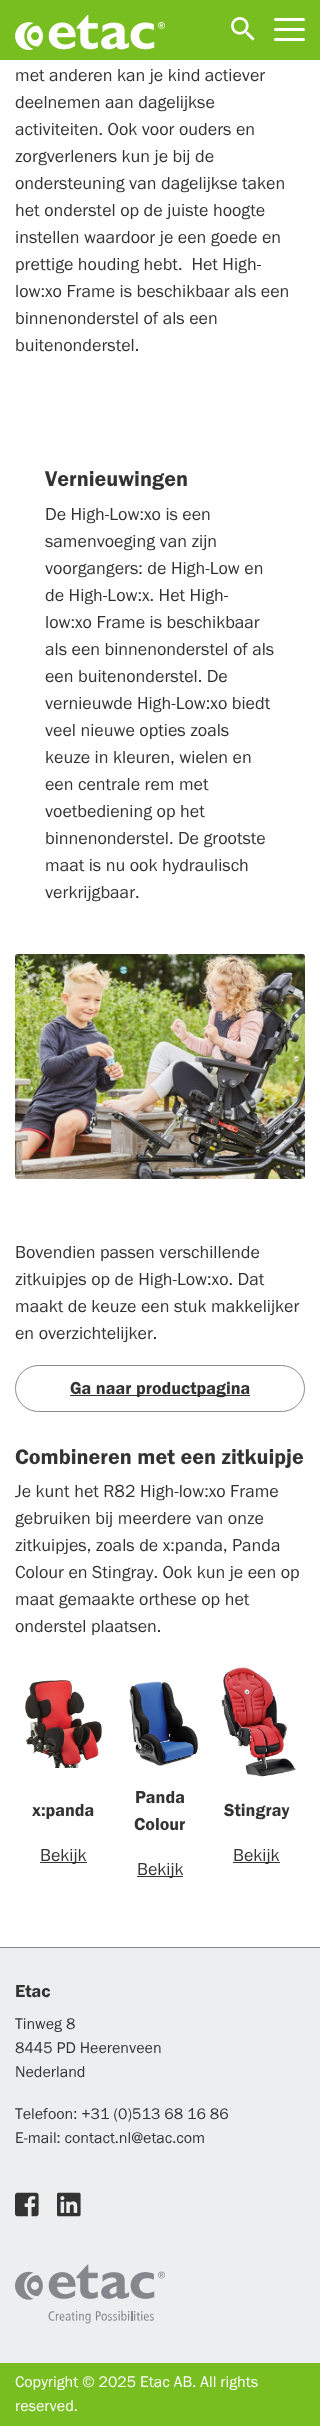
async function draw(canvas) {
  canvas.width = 320;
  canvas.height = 2426;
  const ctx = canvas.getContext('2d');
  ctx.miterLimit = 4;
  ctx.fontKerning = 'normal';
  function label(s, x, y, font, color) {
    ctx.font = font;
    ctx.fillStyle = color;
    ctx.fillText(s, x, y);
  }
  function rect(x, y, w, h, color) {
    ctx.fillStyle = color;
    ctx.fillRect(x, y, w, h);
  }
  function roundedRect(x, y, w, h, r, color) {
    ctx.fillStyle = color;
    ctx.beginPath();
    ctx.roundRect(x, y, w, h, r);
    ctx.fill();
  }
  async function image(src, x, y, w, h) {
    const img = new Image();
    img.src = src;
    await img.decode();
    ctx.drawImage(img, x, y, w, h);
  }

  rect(0, 0, 320, 2426, '#fff');
  rect(0, 0, 320, 60, '#78be20');
  await image('assets/img1.png', 15, 15, 150, 35);
  await image('assets/img2.png', 231, 17, 24, 24);
  roundedRect(274, 18, 31, 3, 1.5, '#fff');
  roundedRect(274, 28, 31, 3, 1.5, '#fff');
  roundedRect(274, 38, 31, 3, 1.5, '#fff');
  label('met anderen kan je kind actiever', 15, 81, '18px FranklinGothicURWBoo', '#333');
  label('deelnemen aan dagelijkse', 15, 108, '18px FranklinGothicURWBoo', '#333');
  label('activiteiten. Ook voor ouders en', 15, 135, '18px FranklinGothicURWBoo', '#333');
  label('zorgverleners kun je bij de', 15, 162, '18px FranklinGothicURWBoo', '#333');
  label('ondersteuning van dagelijkse taken', 15, 189, '18px FranklinGothicURWBoo', '#333');
  label('het onderstel op de juiste hoogte', 15, 216, '18px FranklinGothicURWBoo', '#333');
  label('instellen waardoor je een goede en', 15, 243, '18px FranklinGothicURWBoo', '#333');
  label('prettige houding hebt.  Het High-', 15, 270, '18px FranklinGothicURWBoo', '#333');
  label('low:xo Frame is beschikbaar als een', 15, 297, '18px FranklinGothicURWBoo', '#333');
  label('binnenonderstel of als een', 15, 324, '18px FranklinGothicURWBoo', '#333');
  label('buitenonderstel.', 15, 351, '18px FranklinGothicURWBoo', '#333');
  label('Vernieuwingen', 45, 486, '22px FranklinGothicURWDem', '#333');
  label('De High-Low:xo is een', 45, 520, '18px FranklinGothicURWBoo', '#333');
  label('samenvoeging van zijn', 45, 547, '18px FranklinGothicURWBoo', '#333');
  label('voorgangers: de High-Low en', 45, 574, '18px FranklinGothicURWBoo', '#333');
  label('de High-Low:x. Het High-', 45, 601, '18px FranklinGothicURWBoo', '#333');
  label('low:xo Frame is beschikbaar', 45, 628, '18px FranklinGothicURWBoo', '#333');
  label('als een binnenonderstel of als', 45, 655, '18px FranklinGothicURWBoo', '#333');
  label('een buitenonderstel. De', 45, 682, '18px FranklinGothicURWBoo', '#333');
  label('vernieuwde High-Low:xo biedt', 45, 709, '18px FranklinGothicURWBoo', '#333');
  label('veel nieuwe opties zoals', 45, 736, '18px FranklinGothicURWBoo', '#333');
  label('keuze in kleuren, wielen en', 45, 763, '18px FranklinGothicURWBoo', '#333');
  label('een centrale rem met', 45, 790, '18px FranklinGothicURWBoo', '#333');
  label('voetbediening op het', 45, 817, '18px FranklinGothicURWBoo', '#333');
  label('binnenonderstel. De grootste', 45, 844, '18px FranklinGothicURWBoo', '#333');
  label('maat is nu ook hydraulisch', 45, 871, '18px FranklinGothicURWBoo', '#333');
  label('verkrijgbaar.', 45, 898, '18px FranklinGothicURWBoo', '#333');
  await image('assets/img3.png', 15, 954, 290, 225);
  label('Bovendien passen verschillende', 15, 1258, '18px FranklinGothicURWBoo', '#333');
  label('zitkuipjes op de High-Low:xo. Dat', 15, 1285, '18px FranklinGothicURWBoo', '#333');
  label('maakt de keuze een stuk makkelijker', 15, 1312, '18px FranklinGothicURWBoo', '#333');
  label('en overzichtelijker.', 15, 1339, '18px FranklinGothicURWBoo', '#333');
  ctx.beginPath();
  ctx.roundRect(15.5, 1365.5, 289, 46, 23);
  ctx.strokeStyle = '#888b8d';
  ctx.stroke();
  rect(70, 1395, 180, 1, '#333');
  label('Ga naar productpagina', 70, 1394, '18px FranklinGothicURWDem', '#333');
  label('Combineren met een zitkuipje', 15, 1464, '22px FranklinGothicURWDem', '#333');
  label('Je kunt het R82 High-low:xo Frame', 15, 1497, '18px FranklinGothicURWBoo', '#333');
  label('gebruiken bij meerdere van onze', 15, 1524, '18px FranklinGothicURWBoo', '#333');
  label('zitkuipjes, zoals de x:panda, Panda', 15, 1551, '18px FranklinGothicURWBoo', '#333');
  label('Colour en Stingray. Ook kun je een op', 15, 1578, '18px FranklinGothicURWBoo', '#333');
  label('maat gemaakte orthese op het', 15, 1605, '18px FranklinGothicURWBoo', '#333');
  label('onderstel plaatsen.', 15, 1632, '18px FranklinGothicURWBoo', '#333');
  await image('assets/img4.png', 25, 1679, 77, 89);
  await image('assets/img5.png', 129, 1681, 69, 85);
  await image('assets/img6.png', 221, 1665, 75, 112);
  label('x:panda', 32, 1816, '18px FranklinGothicURWDem', '#333');
  rect(40, 1862, 47, 1, '#333');
  label('Bekijk', 40, 1861, '18px FranklinGothicURWBoo', '#333');
  label('Panda', 135, 1803, '18px FranklinGothicURWDem', '#333');
  label('Colour', 134, 1830, '18px FranklinGothicURWDem', '#333');
  rect(137, 1876, 46, 1, '#333');
  label('Bekijk', 137, 1875, '18px FranklinGothicURWBoo', '#333');
  label('Stingray', 224, 1816, '18px FranklinGothicURWDem', '#333');
  rect(233, 1862, 47, 1, '#333');
  label('Bekijk', 233, 1861, '18px FranklinGothicURWBoo', '#333');
  rect(0, 1948, 320, 415, '#edeeef');
  rect(0, 1947, 320, 1, '#888b8d');
  label('Etac', 15, 1997, '18px FranklinGothicURWDem', '#333');
  label('Tinweg 8', 15, 2029, '16px FranklinGothicURWBoo', '#333');
  label('8445 PD Heerenveen', 15, 2053, '16px FranklinGothicURWBoo', '#333');
  label('Nederland', 15, 2077, '16px FranklinGothicURWBoo', '#333');
  label('Telefoon: +31 (0)513 68 16 86', 15, 2119, '16px FranklinGothicURWBoo', '#333');
  label('E-mail: contact.nl@etac.com', 15, 2143, '16px FranklinGothicURWBoo', '#333');
  await image('assets/img7.png', 15, 2192, 24, 25);
  await image('assets/img8.png', 57, 2192, 24, 25);
  await image('assets/img9.png', 15, 2264, 150, 60);
  rect(0, 2363, 320, 63, '#78be20');
  label('Copyright © 2025 Etac AB. All rights', 15, 2387, '16px FranklinGothicURWBoo', '#fff');
  label('reserved.', 15, 2411, '16px FranklinGothicURWBoo', '#fff');
}

draw(document.querySelector('canvas'));
